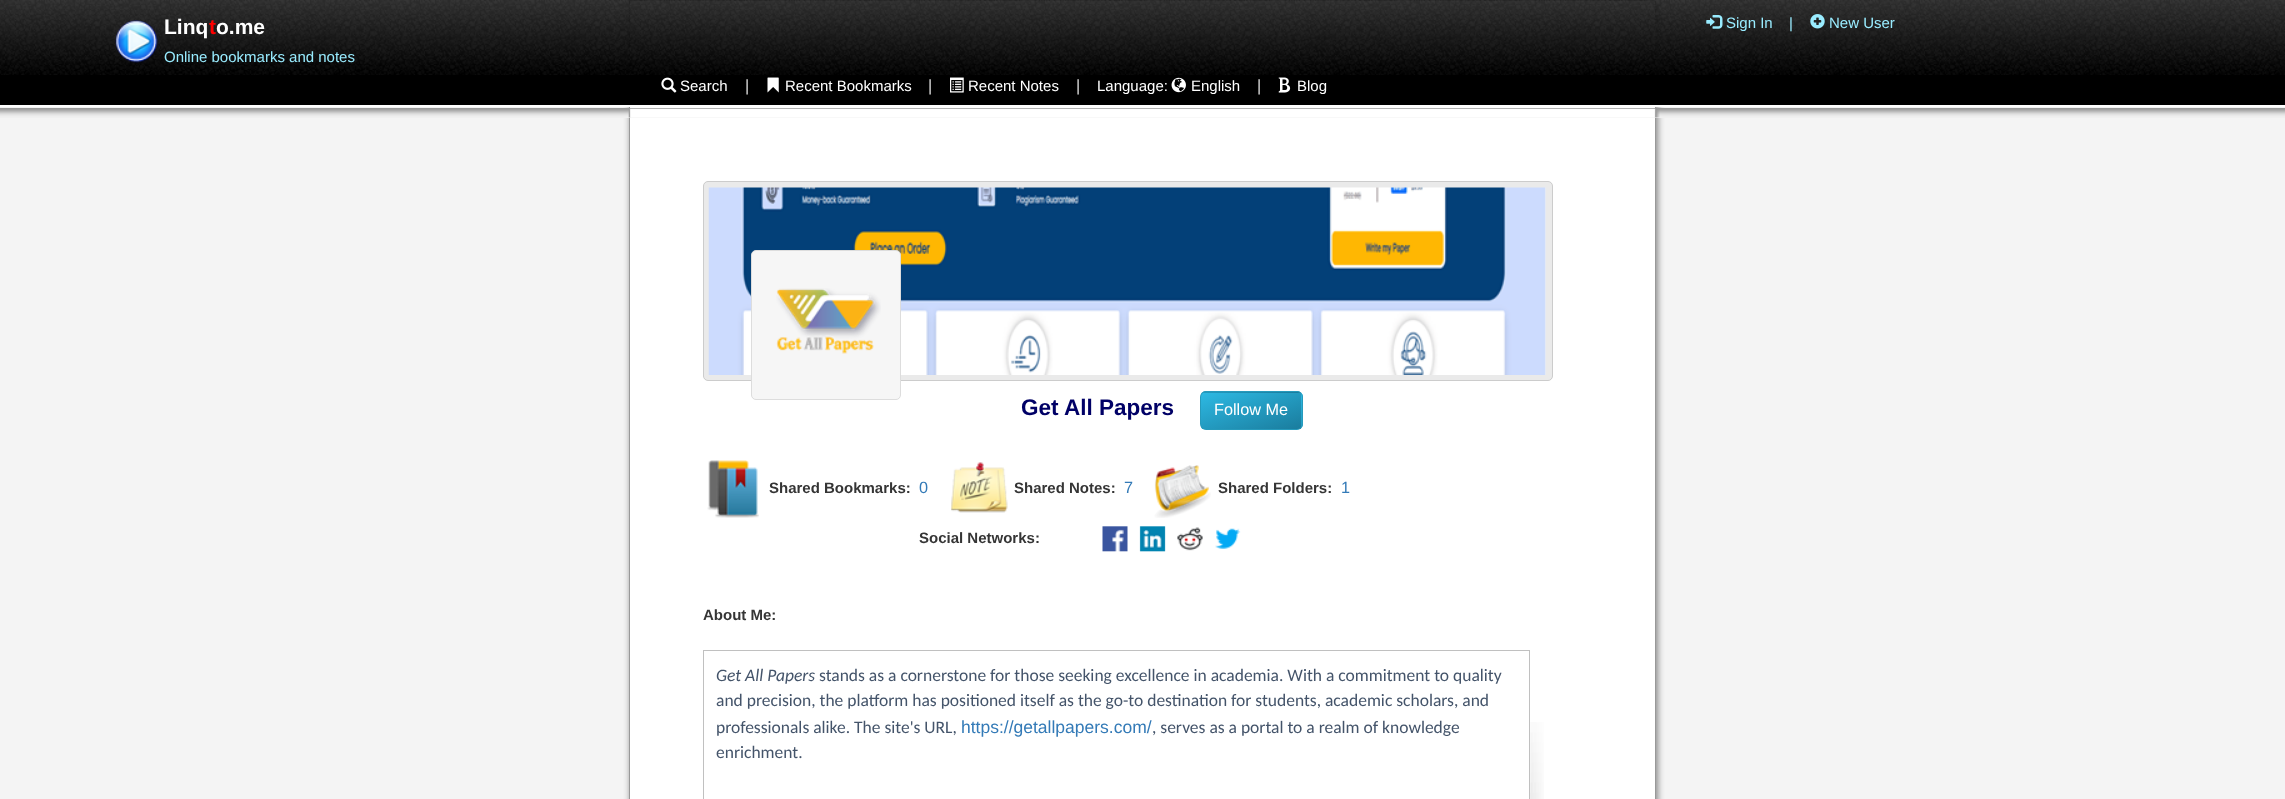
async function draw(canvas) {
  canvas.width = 2285;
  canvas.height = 799;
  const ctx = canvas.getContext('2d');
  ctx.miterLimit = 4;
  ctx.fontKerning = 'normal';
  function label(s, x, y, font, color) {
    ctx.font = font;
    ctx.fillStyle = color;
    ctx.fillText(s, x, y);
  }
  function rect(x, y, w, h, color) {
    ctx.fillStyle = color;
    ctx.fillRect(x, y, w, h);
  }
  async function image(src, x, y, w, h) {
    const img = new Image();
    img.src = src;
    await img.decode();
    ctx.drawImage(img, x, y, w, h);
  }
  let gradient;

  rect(0, 0, 2285, 799, '#f4f4f4');
  ctx.fillStyle = '#888';
  ctx.filter = 'blur(3px)';
  ctx.beginPath();
  ctx.roundRect(630, 1, 1028, 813, 6);
  ctx.fill();
  ctx.filter = 'none';
  ctx.fillStyle = '#fff';
  ctx.beginPath();
  ctx.rect(629.5, 0.5, 1026, 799);
  ctx.fill();
  ctx.strokeStyle = '#999';
  ctx.stroke();
  await image('assets/img1.png', 0, 0, 2285, 75);
  await image('assets/img2.png', 115, 20, 43, 43);
  label('Linq', 164, 34, 'bold 21px Liberation Sans', '#fff');
  label('t', 209, 34, 'bold 21px Liberation Sans', '#f00');
  label('o.me', 216, 34, 'bold 21px Liberation Sans', '#fff');
  label('Online bookmarks and notes', 164, 62, '15px Liberation Sans', '#99ecff');
  await image('assets/img3.png', 1706, 15, 17, 14);
  label('Sign In', 1726, 28, '15px Liberation Sans', '#99ecff');
  label('|', 1789, 28, '15px Liberation Sans', '#99ecff');
  await image('assets/img4.png', 1810, 14, 15, 15);
  label('New User', 1829, 28, '15px Liberation Sans', '#99ecff');
  rect(0, 75, 2285, 30, '#000');
  rect(0, 105, 2285, 2, '#fff');
  await image('assets/img5.png', 661, 77, 16, 16);
  label('Search', 680, 91, '15px Liberation Sans', '#fff');
  label('|', 745, 91, '16.25px Liberation Sans', '#ddd');
  await image('assets/img6.png', 767, 77, 12, 16);
  label('Recent Bookmarks', 785, 91, '15px Liberation Sans', '#fff');
  label('|', 928, 91, '16.25px Liberation Sans', '#ddd');
  await image('assets/img7.png', 950, 77, 14, 16);
  label('Recent Notes', 968, 91, '15px Liberation Sans', '#fff');
  label('|', 1076, 91, '16.25px Liberation Sans', '#ddd');
  label('Language:', 1097, 91, '15px Liberation Sans', '#fff');
  await image('assets/img8.png', 1171, 77, 15, 16);
  label('English', 1191, 91, '15px Liberation Sans', '#fff');
  label('|', 1257, 91, '16.25px Liberation Sans', '#ddd');
  await image('assets/img9.png', 1278, 77, 13, 16);
  label('Blog', 1297, 91, '15px Liberation Sans', '#fff');
  await image('assets/img10.png', 0, 108, 2285, 10);
  await image('assets/img11.png', 628, 108, 1032, 10);
  ctx.fillStyle = '#eaeaea';
  ctx.beginPath();
  ctx.roundRect(703.5, 181.5, 849, 199, 4.5);
  ctx.fill();
  ctx.strokeStyle = '#ccc';
  ctx.stroke();
  await image('assets/img12.png', 708, 187, 838, 188);
  ctx.fillStyle = '#f6f6f6';
  ctx.beginPath();
  ctx.roundRect(751.5, 250.5, 149, 149, 4.5);
  ctx.fill();
  ctx.strokeStyle = '#ddd';
  ctx.stroke();
  await image('assets/img13.png', 776, 288, 105, 66);
  label('Get All Papers', 1021, 415, 'bold 22.5px Liberation Sans', '#006');
  ctx.save();
  ctx.beginPath();
  ctx.roundRect(1200, 391, 103, 39, 6);
  ctx.clip();
  gradient = ctx.createLinearGradient(1240, 342, 1263, 406);
  gradient.addColorStop(0, '#2db9e3');
  gradient.addColorStop(1, '#1a7c9d');
  ctx.fillStyle = gradient;
  ctx.fillRect(1201, 391, 100, 2);
  gradient = ctx.createLinearGradient(1340, 342, 1363, 406);
  gradient.addColorStop(0, '#2db9e3');
  gradient.addColorStop(1, '#1a7c9d');
  ctx.fillStyle = gradient;
  ctx.fillRect(1301, 392, 2, 1);
  gradient = ctx.createLinearGradient(1240, 379, 1263, 443);
  gradient.addColorStop(0, '#2db9e3');
  gradient.addColorStop(1, '#1a7c9d');
  ctx.fillStyle = gradient;
  ctx.fillRect(1201, 393, 100, 36);
  gradient = ctx.createLinearGradient(1340, 379, 1363, 443);
  gradient.addColorStop(0, '#2db9e3');
  gradient.addColorStop(1, '#1a7c9d');
  ctx.fillStyle = gradient;
  ctx.fillRect(1301, 393, 2, 36);
  ctx.restore();
  ctx.beginPath();
  ctx.roundRect(1200.5, 391.5, 102, 38, 5.5);
  ctx.strokeStyle = '#269abc';
  ctx.stroke();
  label('Follow Me', 1214, 415, '16.25px Liberation Sans', '#fff');
  await image('assets/img14.png', 707, 460, 52, 58);
  label('Shared Bookmarks:', 769, 493, 'bold 15px Liberation Sans', '#353535');
  label('0', 919, 493, '16.25px Liberation Sans', '#337ab7');
  await image('assets/img15.png', 951, 462, 57, 51);
  label('Shared Notes:', 1014, 493, 'bold 15px Liberation Sans', '#353535');
  label('7', 1124, 493, '16.25px Liberation Sans', '#337ab7');
  await image('assets/img16.png', 1154, 465, 57, 53);
  label('Shared Folders:', 1218, 493, 'bold 15px Liberation Sans', '#353535');
  label('1', 1341, 493, '16.25px Liberation Sans', '#337ab7');
  label('Social Networks:', 919, 543, 'bold 15px Liberation Sans', '#353535');
  await image('assets/img17.png', 1102, 526, 26, 26);
  await image('assets/img18.png', 1139, 526, 27, 26);
  await image('assets/img19.png', 1177, 527, 26, 24);
  await image('assets/img20.png', 1215, 528, 26, 21);
  label('About Me:', 703, 620, 'bold 15px Liberation Sans', '#353535');
  await image('assets/img21.png', 1530, 722, 14, 77);
  ctx.strokeStyle = '#c0c0c0';
  ctx.strokeRect(703.5, 650.5, 826, 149);
  label('Get All Papers', 716, 681, 'italic 17.5px Carlito', '#44546a');
  label('stands as a cornerstone for those seeking excellence in academia. With a commitment to quality', 819, 681, '17.5px Carlito', '#44546a');
  label('and precision, the platform has positioned itself as the go-to destination for students, academic scholars, and', 716, 706, '17.5px Carlito', '#44546a');
  label('professionals alike. The site\'s URL,', 716, 733, '17.5px Carlito', '#44546a');
  label('https://getallpapers.com/', 961, 733, '17.5px Liberation Sans', '#337ab7');
  label(', serves as a portal to a realm of knowledge', 1152, 733, '17.5px Carlito', '#44546a');
  label('enrichment.', 716, 758, '17.5px Carlito', '#44546a');
}

draw(document.querySelector('canvas'));
